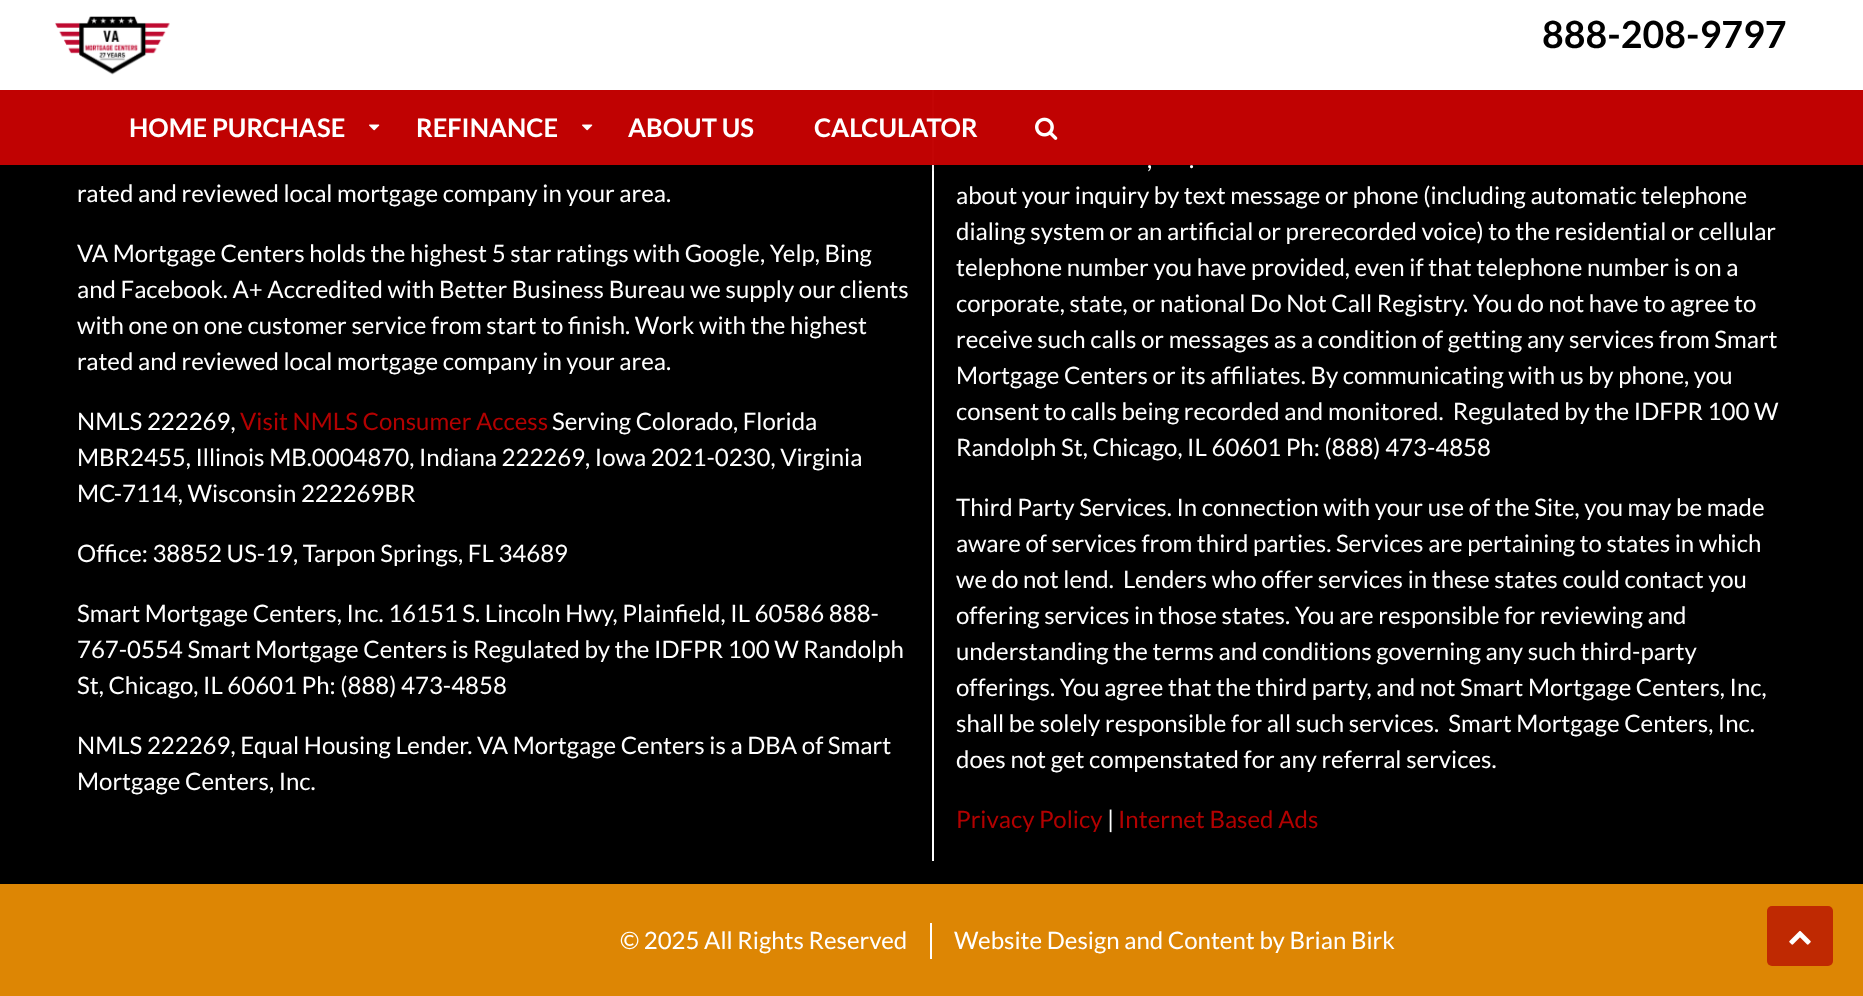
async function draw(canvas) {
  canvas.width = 1863;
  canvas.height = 996;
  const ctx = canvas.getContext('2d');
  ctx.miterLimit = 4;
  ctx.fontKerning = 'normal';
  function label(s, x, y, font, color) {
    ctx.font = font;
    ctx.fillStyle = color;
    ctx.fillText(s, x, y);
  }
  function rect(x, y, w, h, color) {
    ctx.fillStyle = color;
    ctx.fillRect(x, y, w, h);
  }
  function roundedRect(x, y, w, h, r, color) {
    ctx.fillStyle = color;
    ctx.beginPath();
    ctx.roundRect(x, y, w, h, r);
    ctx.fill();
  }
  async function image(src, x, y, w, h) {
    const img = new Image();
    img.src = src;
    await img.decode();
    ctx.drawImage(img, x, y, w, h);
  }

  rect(0, 0, 1863, 996, '#000');
  rect(0, 0, 1863, 90, '#fff');
  await image('assets/img1.png', 55, 16, 115, 59);
  label('888-208-9797', 1542, 48, 'bold 37.5px Lato', '#000');
  rect(932, 90, 2, 771, '#fff');
  ctx.save();
  ctx.beginPath();
  ctx.rect(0, 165, 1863, 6);
  ctx.clip();
  ctx.fillStyle = '#0000001a';
  ctx.filter = 'blur(4px)';
  ctx.beginPath();
  ctx.rect(0, 93, 1863, 75);
  ctx.fill();
  ctx.filter = 'none';
  ctx.restore();
  rect(0, 90, 1863, 75, '#c20202fc');
  label('HOME PURCHASE', 129, 137, 'bold 25.5px Lato', '#fff');
  await image('assets/img2.png', 369, 124, 11, 7);
  label('REFINANCE', 416, 137, 'bold 25.5px Lato', '#fff');
  await image('assets/img3.png', 582, 124, 11, 7);
  label('ABOUT US', 628, 137, 'bold 25.5px Lato', '#fff');
  label('CALCULATOR', 814, 137, 'bold 25.5px Lato', '#fff');
  await image('assets/img4.png', 1035, 117, 23, 23);
  label('rated and reviewed local mortgage company in your area.', 77, 202, '24px Lato', '#fff');
  label('VA Mortgage Centers holds the highest 5 star ratings with Google, Yelp, Bing', 77, 262, '24px Lato', '#fff');
  label('and Facebook. A+ Accredited with Better Business Bureau we supply our clients', 77, 298, '24px Lato', '#fff');
  label('with one on one customer service from start to finish. Work with the highest', 77, 334, '24px Lato', '#fff');
  label('rated and reviewed local mortgage company in your area.', 77, 370, '24px Lato', '#fff');
  label('NMLS 222269,', 77, 430, '24px Lato', '#fff');
  label('Visit NMLS Consumer Access', 240, 430, '24px Lato', '#b20101');
  label('Serving Colorado, Florida', 552, 430, '24px Lato', '#fff');
  label('MBR2455, Illinois MB.0004870, Indiana 222269, Iowa 2021-0230, Virginia', 77, 466, '24px Lato', '#fff');
  label('MC-7114, Wisconsin 222269BR', 77, 502, '24px Lato', '#fff');
  label('Office: 38852 US-19, Tarpon Springs, FL 34689', 77, 562, '24px Lato', '#fff');
  label('Smart Mortgage Centers, Inc. 16151 S. Lincoln Hwy, Plainfield, IL 60586 888-', 77, 622, '24px Lato', '#fff');
  label('767-0554 Smart Mortgage Centers is Regulated by the IDFPR 100 W Randolph', 77, 658, '24px Lato', '#fff');
  label('St, Chicago, IL 60601 Ph: (888) 473-4858', 77, 694, '24px Lato', '#fff');
  label('NMLS 222269, Equal Housing Lender. VA Mortgage Centers is a DBA of Smart', 77, 754, '24px Lato', '#fff');
  label('Mortgage Centers, Inc.', 77, 790, '24px Lato', '#fff');
  label(',', 1147, 168, '24px Lato', '#fff');
  label('.', 1189, 168, '24px Lato', '#fff');
  label('about your inquiry by text message or phone (including automatic telephone', 956, 204, '24px Lato', '#fff');
  label('dialing system or an artificial or prerecorded voice) to the residential or cellular', 956, 240, '24px Lato', '#fff');
  label('telephone number you have provided, even if that telephone number is on a', 956, 276, '24px Lato', '#fff');
  label('corporate, state, or national Do Not Call Registry. You do not have to agree to', 956, 312, '24px Lato', '#fff');
  label('receive such calls or messages as a condition of getting any services from Smart', 956, 348, '24px Lato', '#fff');
  label('Mortgage Centers or its affiliates. By communicating with us by phone, you', 956, 384, '24px Lato', '#fff');
  label('consent to calls being recorded and monitored.  Regulated by the IDFPR 100 W', 956, 420, '24px Lato', '#fff');
  label('Randolph St, Chicago, IL 60601 Ph: (888) 473-4858', 956, 456, '24px Lato', '#fff');
  label('Third Party Services. In connection with your use of the Site, you may be made', 956, 516, '24px Lato', '#fff');
  label('aware of services from third parties. Services are pertaining to states in which', 956, 552, '24px Lato', '#fff');
  label('we do not lend.  Lenders who offer services in these states could contact you', 956, 588, '24px Lato', '#fff');
  label('offering services in those states. You are responsible for reviewing and', 956, 624, '24px Lato', '#fff');
  label('understanding the terms and conditions governing any such third-party', 956, 660, '24px Lato', '#fff');
  label('offerings. You agree that the third party, and not Smart Mortgage Centers, Inc,', 956, 696, '24px Lato', '#fff');
  label('shall be solely responsible for all such services.  Smart Mortgage Centers, Inc.', 956, 732, '24px Lato', '#fff');
  label('does not get compenstated for any referral services.', 956, 768, '24px Lato', '#fff');
  label('Privacy Policy', 956, 828, '24px Lato', '#b20101');
  label('|', 1107, 828, '24px Lato', '#fff');
  label('Internet Based Ads', 1118, 828, '24px Lato', '#b20101');
  rect(0, 884, 1863, 112, '#dd8604');
  rect(930, 923, 2, 36, '#fff');
  label('© 2025 All Rights Reserved', 620, 949, '24px Lato', '#fff');
  label('Website Design and Content by Brian Birk', 954, 949, '24px Lato', '#fff');
  roundedRect(1767, 906, 66, 60, 5, '#bf2902');
  await image('assets/img5.png', 1789, 930, 22, 15);
}

draw(document.querySelector('canvas'));
